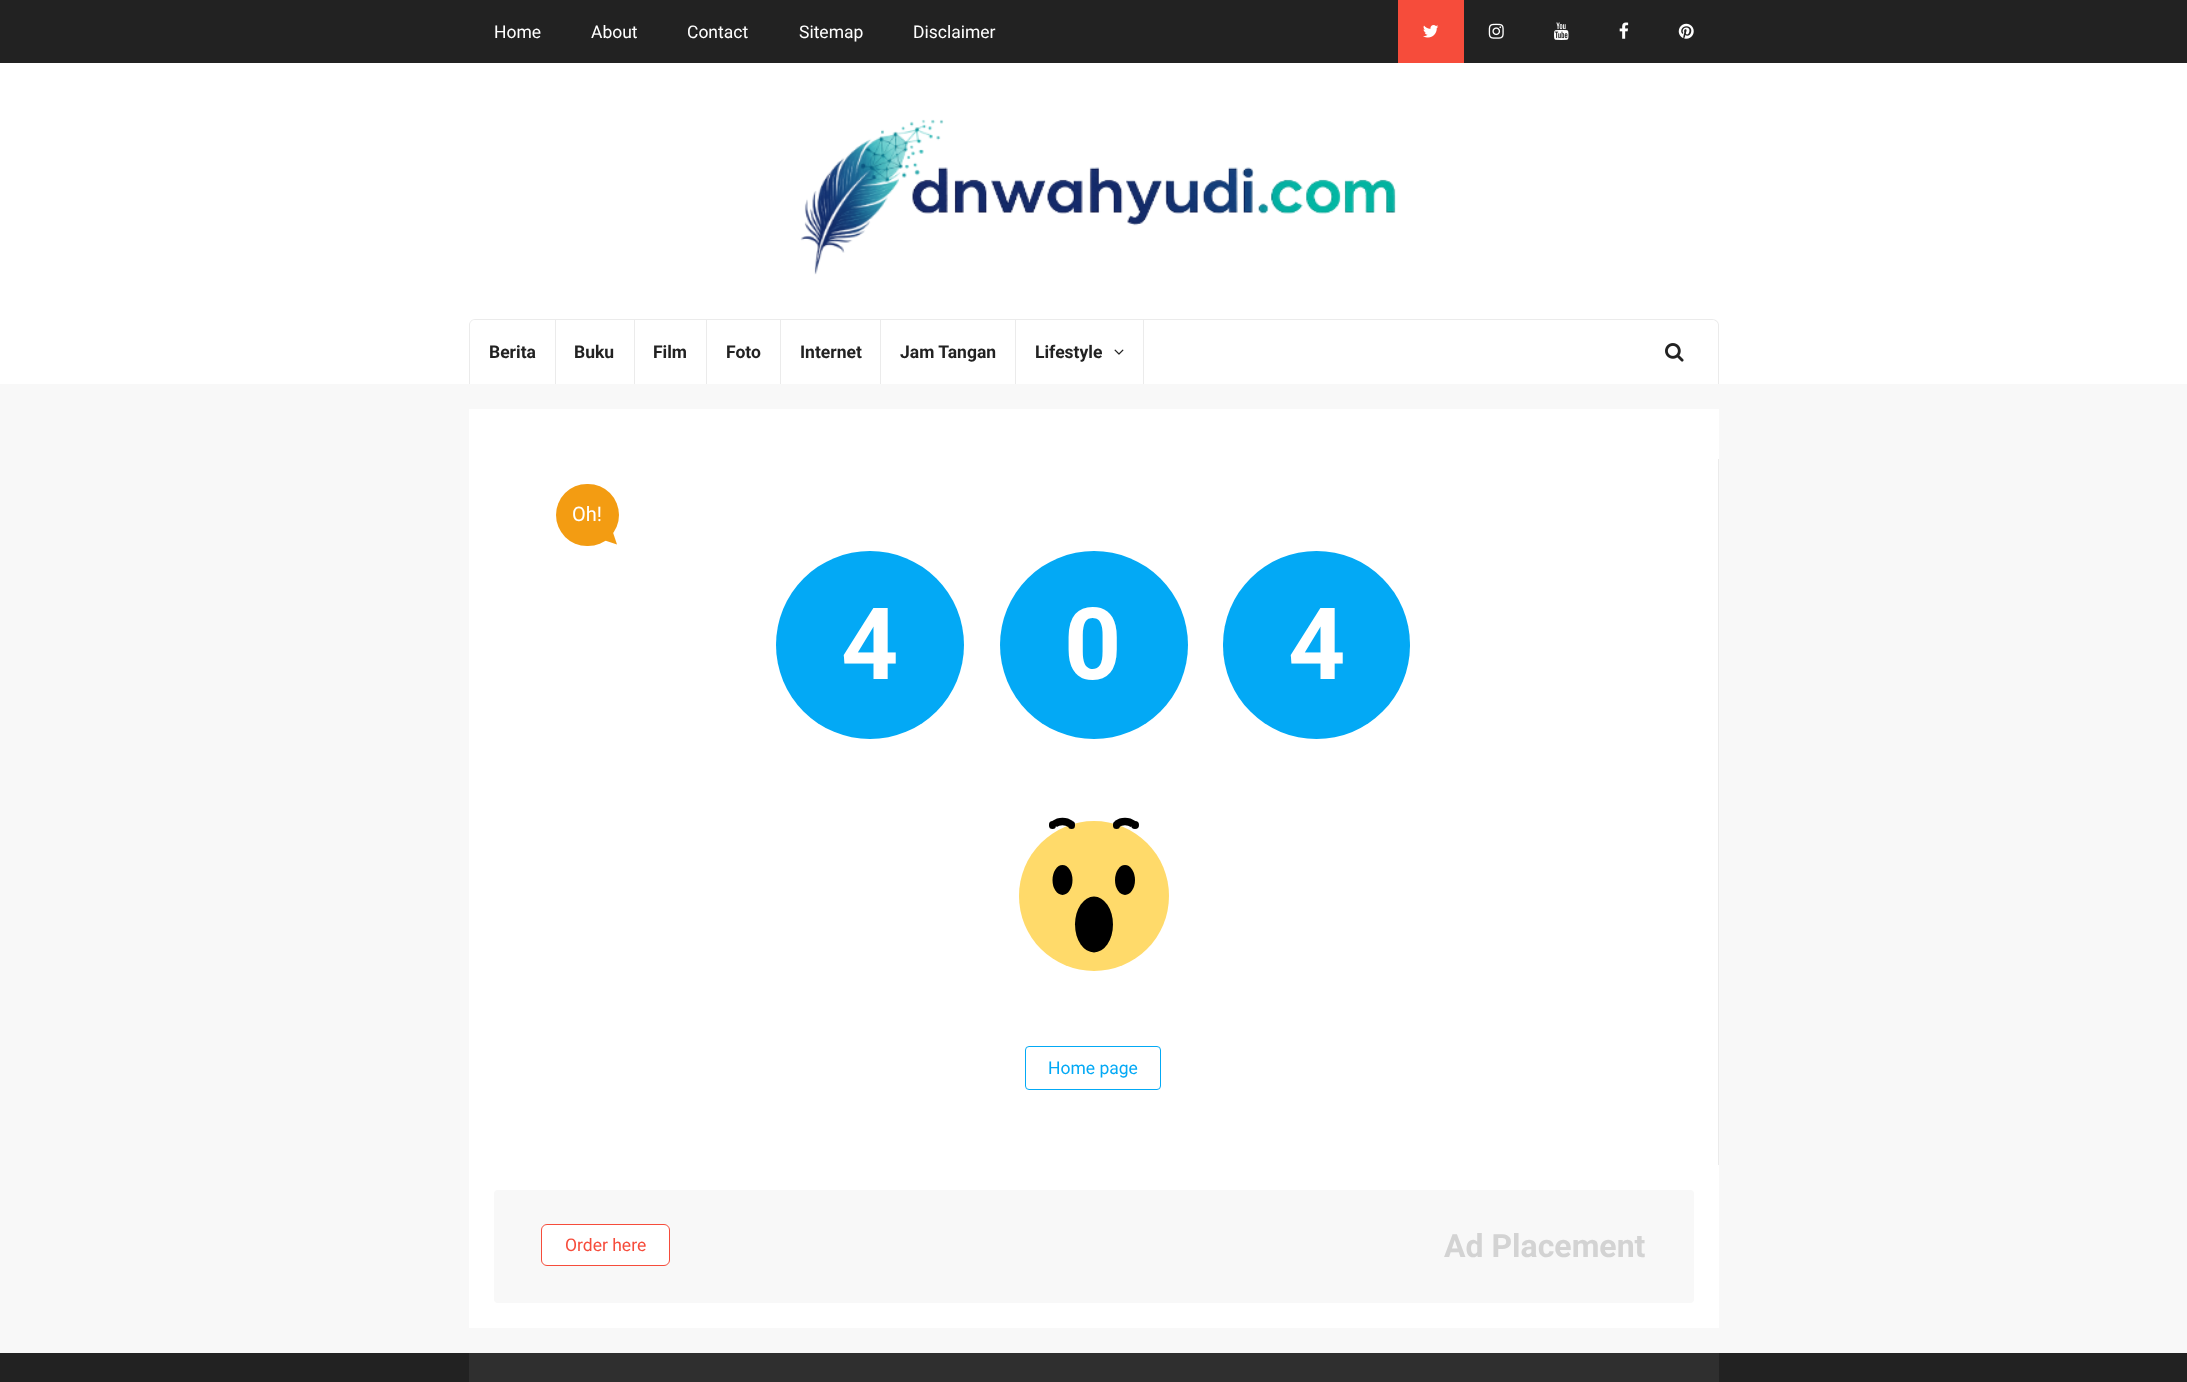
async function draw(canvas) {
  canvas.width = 2187;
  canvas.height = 1382;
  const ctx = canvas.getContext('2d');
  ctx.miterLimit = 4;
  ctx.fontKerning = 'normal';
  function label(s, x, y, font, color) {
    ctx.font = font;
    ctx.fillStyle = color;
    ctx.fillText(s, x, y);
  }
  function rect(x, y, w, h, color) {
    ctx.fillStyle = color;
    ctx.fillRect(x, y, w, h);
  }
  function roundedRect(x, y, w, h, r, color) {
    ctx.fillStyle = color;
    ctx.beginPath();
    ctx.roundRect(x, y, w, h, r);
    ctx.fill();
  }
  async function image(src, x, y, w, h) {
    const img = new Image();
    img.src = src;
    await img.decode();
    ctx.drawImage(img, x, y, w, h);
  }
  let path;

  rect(0, 0, 2187, 1382, '#f8f8f8');
  rect(0, 0, 2187, 63, '#222');
  label('Home', 494, 38, '17.5px Roboto', '#fff');
  label('About', 591, 38, '17.5px Roboto', '#fff');
  label('Contact', 687, 38, '17.5px Roboto', '#fff');
  label('Sitemap', 799, 38, '17.5px Roboto', '#fff');
  label('Disclaimer', 913, 38, '17.5px Roboto', '#fff');
  rect(1398, 0, 66, 63, '#f64c3b');
  await image('assets/img1.png', 1423, 25, 16, 13);
  await image('assets/img2.png', 1488, 23, 16, 16);
  await image('assets/img3.png', 1554, 22, 15, 18);
  await image('assets/img4.png', 1619, 22, 10, 17);
  await image('assets/img5.png', 1678, 23, 16, 16);
  rect(0, 63, 2187, 321, '#fff');
  await image('assets/img6.png', 800, 119, 596, 156);
  ctx.fillStyle = '#ebebeb';
  path = new Path2D('M475 319H1712C1716 319 1719 322 1719 325V384H469V325C469 322 472 319 475 319ZM475 320H1712C1715 320 1718 322 1718 325V384H470V325C470 322 472 320 475 320Z');
  ctx.fill(path, 'evenodd');
  rect(555, 320, 1, 64, '#ebebeb');
  label('Berita', 489, 358, 'bold 17.5px Roboto', '#222');
  rect(634, 320, 1, 64, '#ebebeb');
  label('Buku', 574, 358, 'bold 17.5px Roboto', '#222');
  rect(706, 320, 1, 64, '#ebebeb');
  label('Film', 653, 358, 'bold 17.5px Roboto', '#222');
  rect(780, 320, 1, 64, '#ebebeb');
  label('Foto', 726, 358, 'bold 17.5px Roboto', '#222');
  rect(880, 320, 1, 64, '#ebebeb');
  label('Internet', 800, 358, 'bold 17.5px Roboto', '#222');
  rect(1015, 320, 1, 64, '#ebebeb');
  label('Jam Tangan', 900, 358, 'bold 17.5px Roboto', '#222');
  rect(1143, 320, 1, 64, '#ebebeb');
  label('Lifestyle', 1035, 358, 'bold 17.5px Roboto', '#222');
  await image('assets/img7.png', 1114, 349, 10, 6);
  await image('assets/img8.png', 1665, 343, 19, 19);
  rect(469, 409, 1250, 919, '#fff');
  rect(1718, 459, 1, 706, '#ebebeb');
  roundedRect(556, 484, 63, 62, 31, '#f39c12');
  label('Oh!', 572, 521, '20px Roboto', '#fff');
  ctx.fillStyle = '#f39c12';
  path = new Path2D('M603.5 540L612.5 531L617 544.5Z');
  ctx.fill(path);
  ctx.fillStyle = '#03a9f5';
  ctx.beginPath();
  ctx.arc(870, 645, 94, 0, 2 * Math.PI);
  ctx.fill();
  label('4', 841, 679, 'bold 100px Roboto', '#fff');
  ctx.fillStyle = '#03a9f5';
  ctx.beginPath();
  ctx.arc(1094, 645, 94, 0, 2 * Math.PI);
  ctx.fill();
  label('0', 1064, 679, 'bold 100px Roboto', '#fff');
  roundedRect(1223, 551, 187, 188, 93.5, '#03a9f5');
  label('4', 1288, 679, 'bold 100px Roboto', '#fff');
  ctx.fillStyle = '#ffda6a';
  ctx.beginPath();
  ctx.arc(1094, 896, 75, 0, 2 * Math.PI);
  ctx.fill();
  ctx.fillStyle = '#000';
  ctx.beginPath();
  ctx.arc(1135, 825, 4, 0, 2 * Math.PI);
  ctx.fill();
  roundedRect(1113, 821, 7, 8, 3.5, '#000');
  roundedRect(1049, 821, 7, 8, 3.5, '#000');
  roundedRect(1068, 821, 7, 8, 3.5, '#000');
  path = new Path2D('M1054.5 824C1059 820.5 1066 820.5 1070.5 824');
  ctx.strokeStyle = '#000';
  ctx.lineWidth = 7.5;
  ctx.stroke(path);
  path = new Path2D('M1117 824C1121.5 820.5 1128.5 820.5 1133 824');
  ctx.stroke(path);
  ctx.beginPath();
  ctx.ellipse(1062.5, 880, 10, 15, 0, 0, 2 * Math.PI);
  ctx.fill();
  ctx.beginPath();
  ctx.ellipse(1125, 880, 10, 15, 0, 0, 2 * Math.PI);
  ctx.fill();
  ctx.beginPath();
  ctx.ellipse(1094, 924.5, 19, 28, 0, 0, 2 * Math.PI);
  ctx.fill();
  ctx.beginPath();
  ctx.roundRect(1025.5, 1046.5, 135, 43, 3.5);
  ctx.strokeStyle = '#03a9f5';
  ctx.lineWidth = 1;
  ctx.stroke();
  label('Home page', 1048, 1074, '17.5px Roboto', '#03a9f5');
  roundedRect(494, 1190, 1200, 113, 4, '#f8f8f8');
  ctx.fillStyle = '#fff';
  ctx.beginPath();
  ctx.roundRect(541.5, 1224.5, 128, 41, 5.5);
  ctx.fill();
  ctx.strokeStyle = '#f64c3b';
  ctx.stroke();
  label('Order here', 565, 1251, '17.5px Roboto', '#f64c3b');
  label('Ad Placement', 1444, 1257, 'bold 32px Roboto', '#d3d3d3');
  rect(0, 1353, 2187, 29, '#222');
  rect(469, 1353, 1250, 29, '#2f2f2f');
}

draw(document.querySelector('canvas'));
